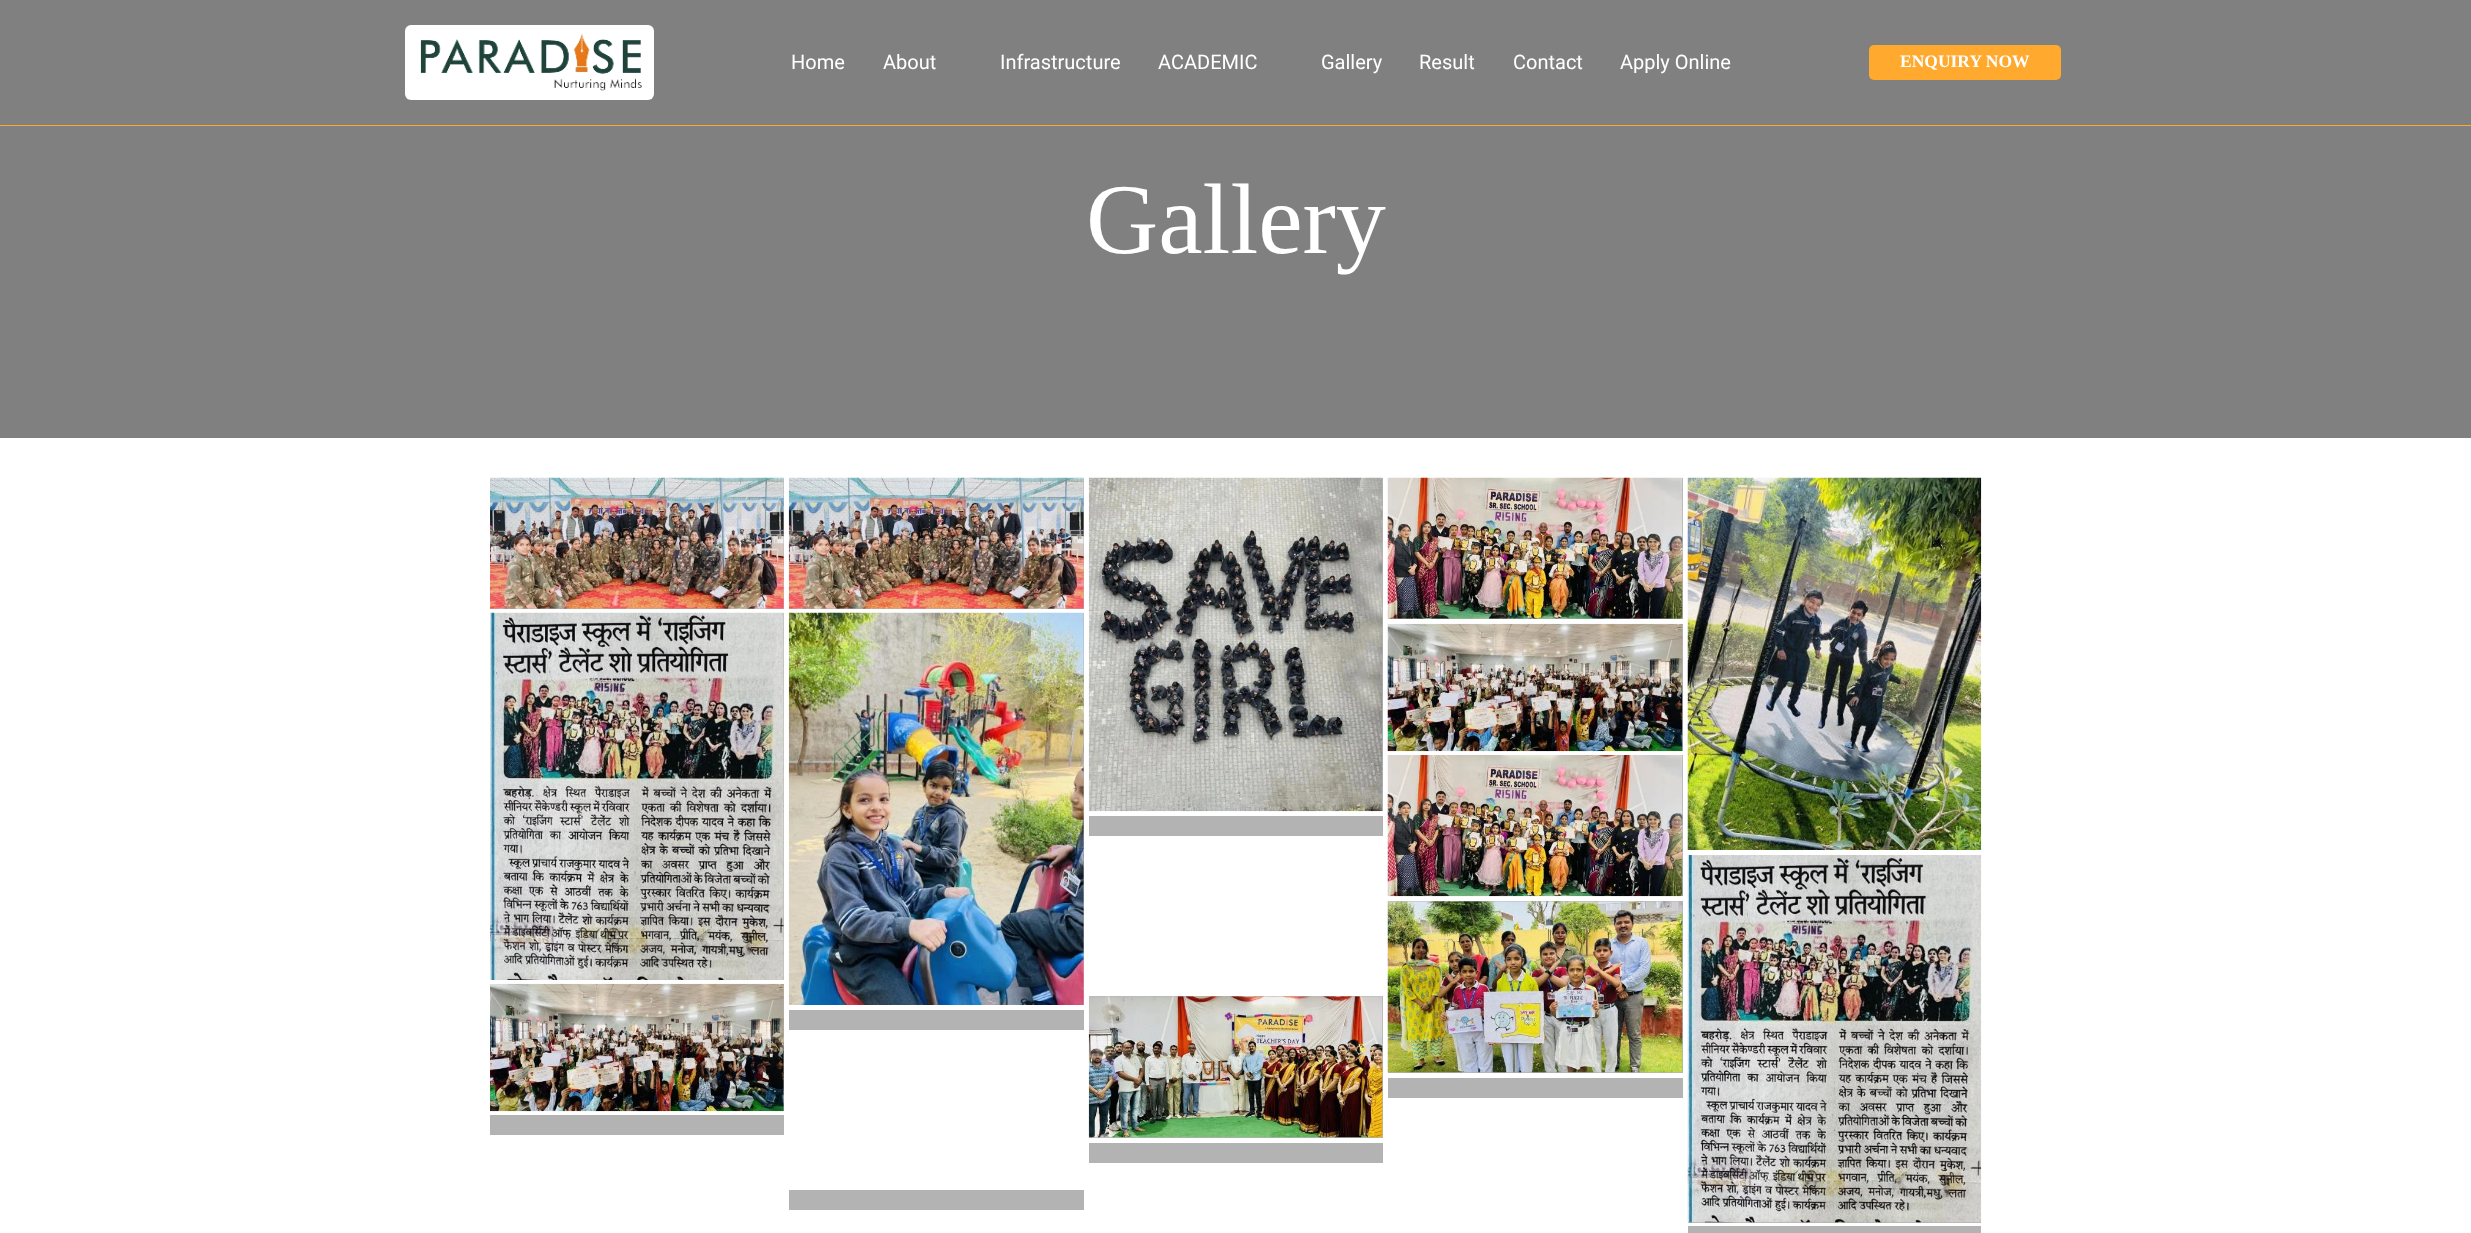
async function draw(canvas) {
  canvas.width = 2471;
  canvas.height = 1233;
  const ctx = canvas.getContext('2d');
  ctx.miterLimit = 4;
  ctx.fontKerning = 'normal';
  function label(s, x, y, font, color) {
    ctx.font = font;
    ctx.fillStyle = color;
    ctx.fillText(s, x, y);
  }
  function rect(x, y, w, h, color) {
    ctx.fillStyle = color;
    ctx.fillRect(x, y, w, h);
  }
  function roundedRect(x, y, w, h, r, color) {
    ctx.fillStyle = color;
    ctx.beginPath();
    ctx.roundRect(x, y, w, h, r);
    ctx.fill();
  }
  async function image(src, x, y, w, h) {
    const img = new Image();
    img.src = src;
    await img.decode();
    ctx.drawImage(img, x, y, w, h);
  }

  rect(0, 0, 2471, 1233, '#fff');
  rect(0, 0, 2471, 438, '#808080');
  rect(0, 125, 2471, 1, '#ffa92e');
  roundedRect(405, 25, 249, 75, 6, '#fff');
  await image('assets/img1.png', 420, 34, 222, 57);
  label('Home', 791, 69, '20px Roboto', '#fff');
  label('About', 883, 69, '20px Roboto', '#fff');
  label('Infrastructure', 1000, 69, '20px Roboto', '#fff');
  label('ACADEMIC', 1158, 69, '20px Roboto', '#fff');
  label('Gallery', 1321, 69, '20px Roboto', '#fff');
  label('Result', 1419, 69, '20px Roboto', '#fff');
  label('Contact', 1513, 69, '20px Roboto', '#fff');
  label('Apply Online', 1620, 69, '20px Roboto', '#fff');
  roundedRect(1869, 45, 192, 35, 5, '#ffa92e');
  label('ENQUIRY NOW', 1900, 67, 'bold 17.5px Liberation Serif', '#fff');
  label('Gallery', 1086, 253, '100px Liberation Serif', '#fff');
  rect(490, 478, 294, 131, '#b3b3b3');
  await image('assets/img2.png', 490, 477, 294, 132);
  rect(789, 478, 295, 131, '#b3b3b3');
  await image('assets/img3.png', 788, 477, 296, 132);
  rect(1382, 478, 1, 333, '#b3b3b3');
  await image('assets/img4.png', 1088, 477, 295, 335);
  rect(1388, 478, 295, 141, '#b3b3b3');
  await image('assets/img5.png', 1387, 477, 296, 142);
  await image('assets/img6.png', 1687, 477, 295, 373);
  rect(783, 613, 1, 367, '#b3b3b3');
  await image('assets/img7.png', 490, 612, 294, 368);
  rect(1083, 613, 1, 392, '#b3b3b3');
  await image('assets/img8.png', 788, 612, 296, 393);
  rect(1682, 624, 1, 127, '#b3b3b3');
  await image('assets/img9.png', 1387, 623, 296, 129);
  rect(1089, 816, 294, 20, '#b3b3b3');
  rect(1682, 755, 1, 141, '#b3b3b3');
  await image('assets/img10.png', 1387, 755, 296, 142);
  rect(783, 984, 1, 127, '#b3b3b3');
  await image('assets/img11.png', 490, 983, 294, 129);
  rect(789, 1010, 295, 20, '#b3b3b3');
  rect(1089, 996, 294, 142, '#b3b3b3');
  await image('assets/img12.png', 1088, 996, 295, 142);
  rect(1388, 901, 295, 172, '#b3b3b3');
  await image('assets/img13.png', 1387, 901, 296, 172);
  rect(1688, 1222, 293, 1, '#b3b3b3');
  await image('assets/img14.png', 1687, 855, 295, 368);
  rect(1388, 1078, 295, 20, '#b3b3b3');
  rect(490, 1115, 294, 20, '#b3b3b3');
  rect(1089, 1143, 294, 20, '#b3b3b3');
  rect(789, 1190, 295, 20, '#b3b3b3');
  rect(1688, 1226, 293, 7, '#b3b3b3');
}

draw(document.querySelector('canvas'));
